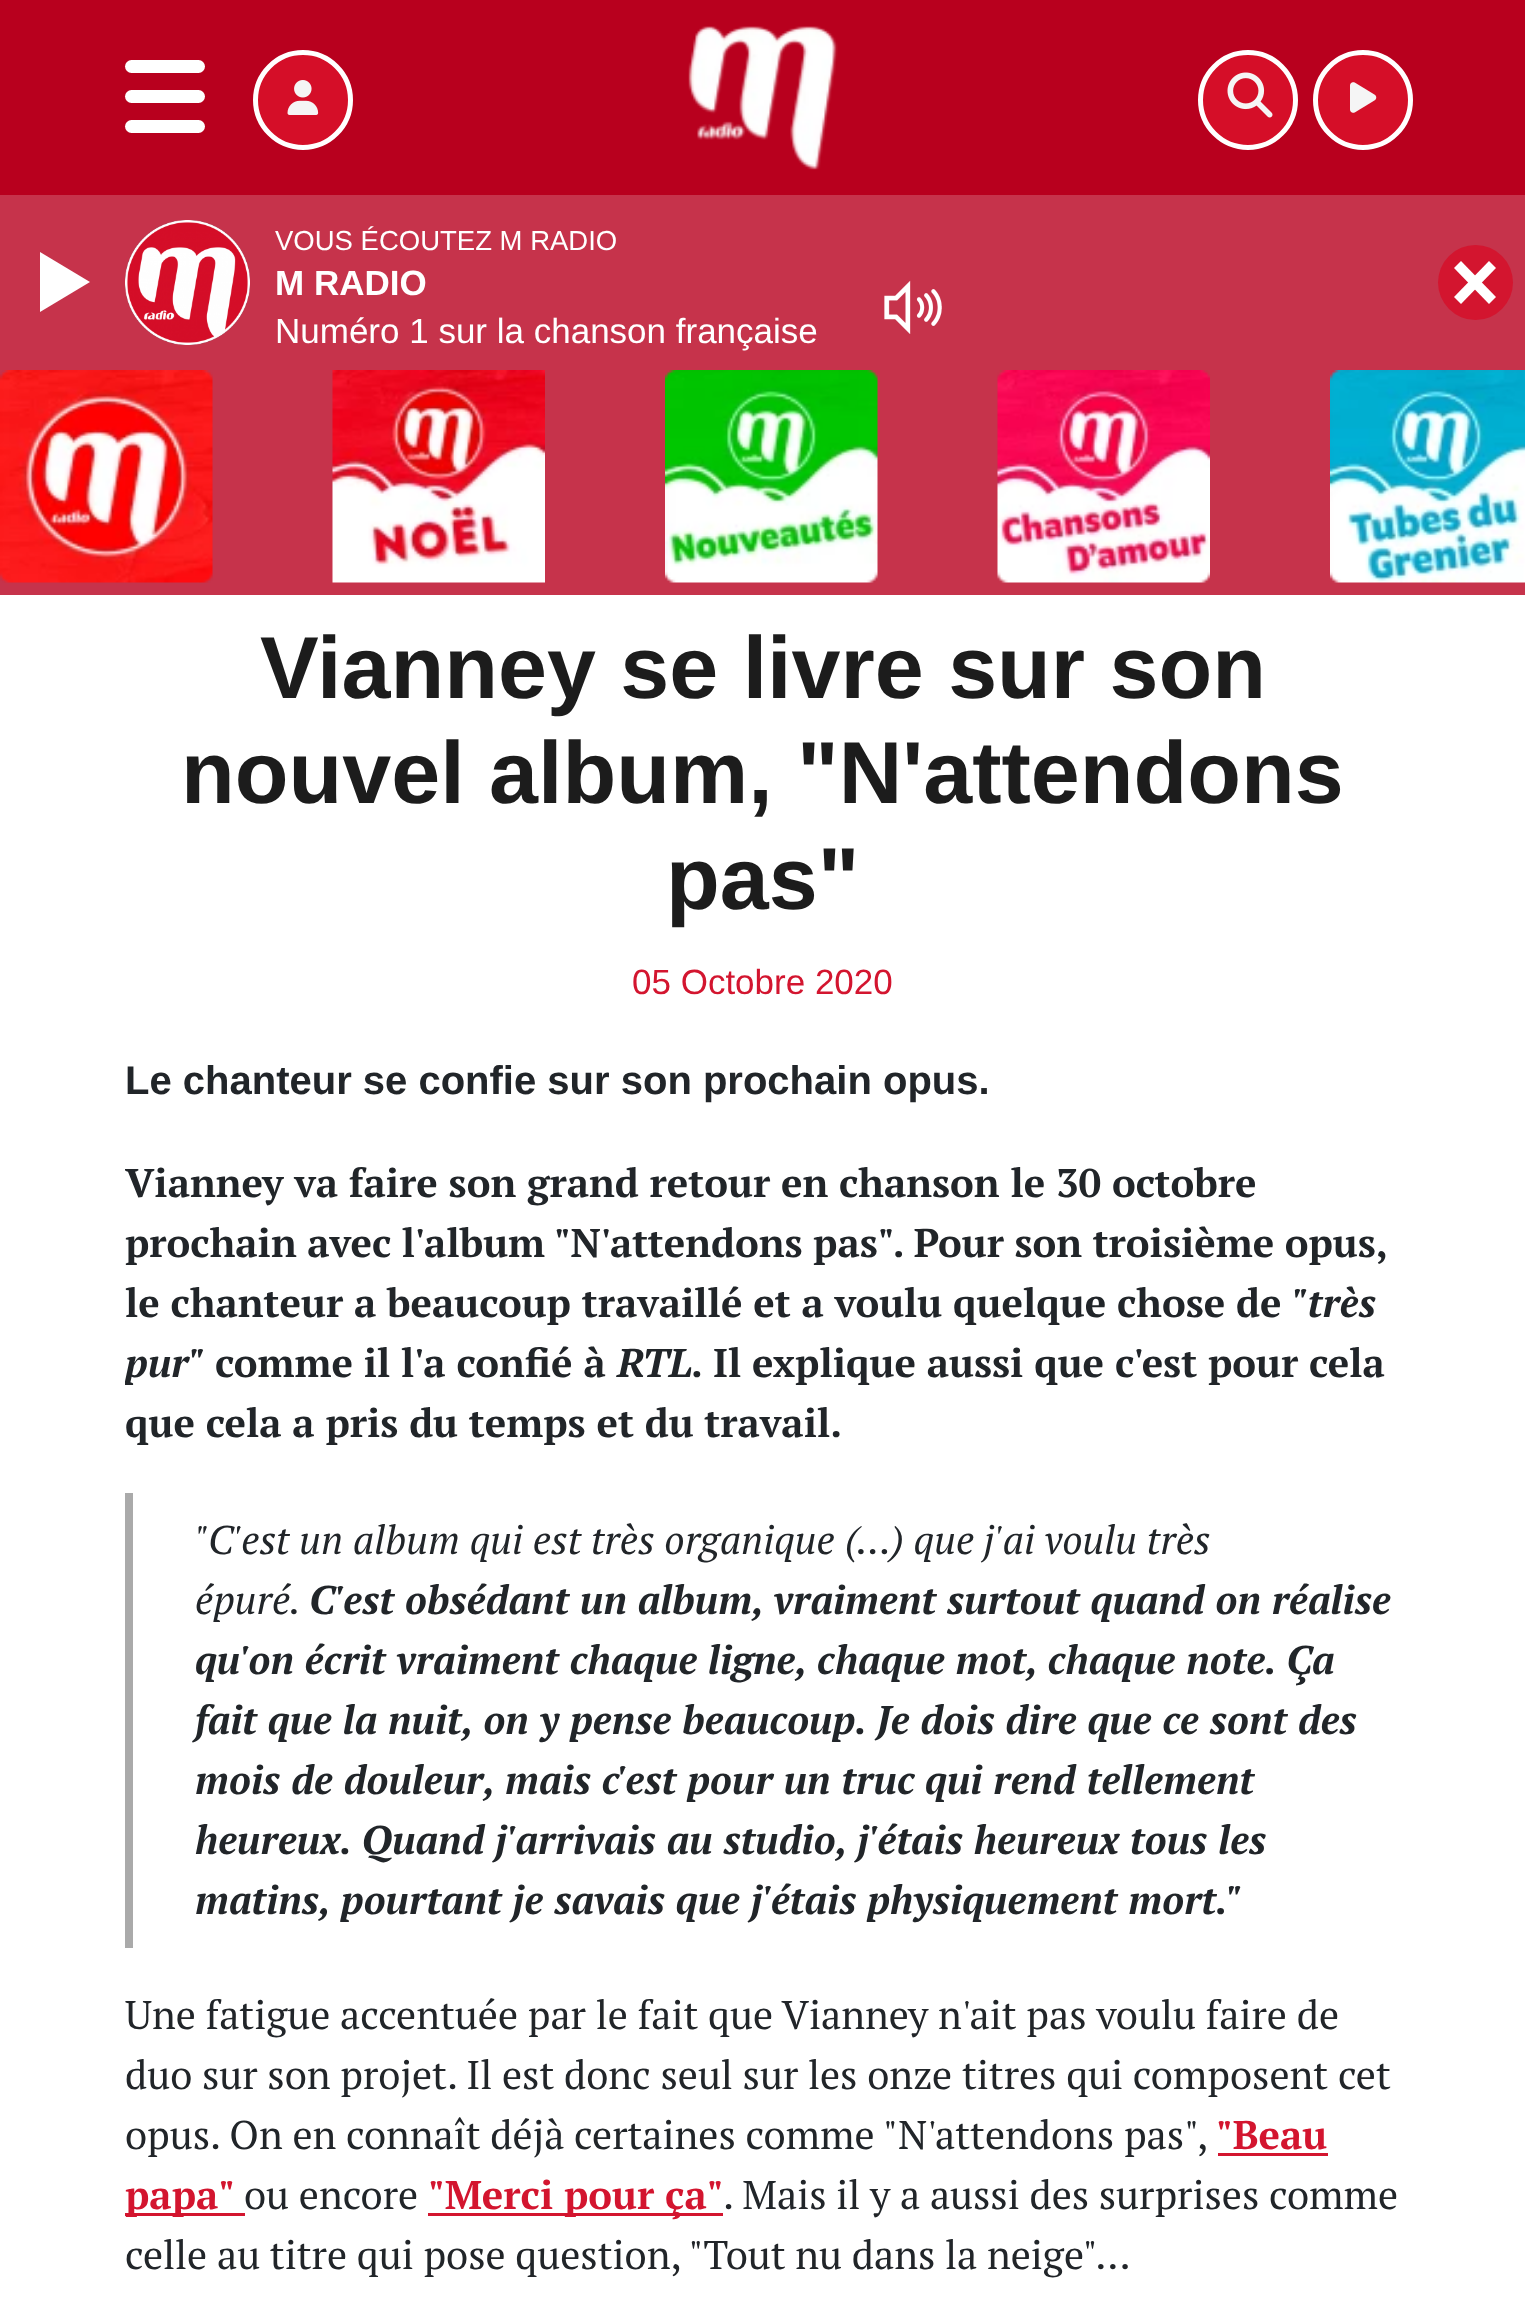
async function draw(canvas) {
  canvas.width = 1525;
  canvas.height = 2297;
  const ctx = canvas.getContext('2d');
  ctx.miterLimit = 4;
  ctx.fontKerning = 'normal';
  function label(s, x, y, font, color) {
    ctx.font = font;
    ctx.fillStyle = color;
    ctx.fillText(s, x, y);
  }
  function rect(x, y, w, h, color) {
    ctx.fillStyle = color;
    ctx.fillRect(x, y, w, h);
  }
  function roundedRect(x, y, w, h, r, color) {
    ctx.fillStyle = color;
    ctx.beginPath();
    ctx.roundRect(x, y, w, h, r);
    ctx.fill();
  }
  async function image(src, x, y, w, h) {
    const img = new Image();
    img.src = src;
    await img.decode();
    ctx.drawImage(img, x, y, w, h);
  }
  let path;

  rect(0, 0, 1525, 2297, '#fff');
  rect(0, 195, 1525, 400, '#c6334b');
  await image('assets/img1.png', 125, 220, 125, 125);
  label('VOUS ÉCOUTEZ M RADIO', 275, 250, '27.5px Liberation Sans', '#fff');
  label('M RADIO', 275, 295, 'bold 35px Liberation Sans', '#fff');
  label('Numéro 1 sur la chanson française', 275, 343, '35px Liberation Sans', '#fff');
  path = new Path2D('M40 312V252L90 282Z');
  ctx.fill(path);
  await image('assets/img2.png', 884, 280, 58, 54);
  ctx.fillStyle = '#d3152f';
  ctx.beginPath();
  ctx.arc(1475.5, 282.5, 37.5, 0, 2 * Math.PI);
  ctx.fill();
  ctx.fillStyle = '#fff';
  path = new Path2D('M1461 261L1496 297L1489 304L1454 268Z');
  ctx.fill(path);
  path = new Path2D('M1454 297L1489 261L1496 268L1461 304Z');
  ctx.fill(path);
  await image('assets/img3.png', 0, 370, 213, 213);
  await image('assets/img4.png', 332, 370, 213, 213);
  await image('assets/img5.png', 665, 370, 213, 213);
  await image('assets/img6.png', 997, 370, 213, 213);
  await image('assets/img7.png', 1330, 370, 195, 213);
  rect(0, 0, 1525, 195, '#b8001e');
  roundedRect(125, 60, 80, 13, 6.5, '#fff');
  roundedRect(125, 90, 80, 13, 6.5, '#fff');
  roundedRect(125, 120, 80, 13, 6.5, '#fff');
  ctx.fillStyle = '#d50e28';
  ctx.beginPath();
  ctx.arc(303, 100, 47.5, 0, 2 * Math.PI);
  ctx.fill();
  ctx.strokeStyle = '#fff';
  ctx.lineWidth = 5;
  ctx.stroke();
  await image('assets/img8.png', 287, 80, 32, 35);
  await image('assets/img9.png', 688, 26, 150, 144);
  ctx.beginPath();
  ctx.arc(1248, 100, 47.5, 0, 2 * Math.PI);
  ctx.fill();
  ctx.stroke();
  await image('assets/img10.png', 1227, 72, 46, 46);
  ctx.beginPath();
  ctx.arc(1363, 100, 47.5, 0, 2 * Math.PI);
  ctx.fill();
  ctx.stroke();
  await image('assets/img11.png', 1350, 82, 27, 31);
  label('Vianney se livre sur son', 260, 698, 'bold 88px Liberation Sans', '#1c1c1c');
  label('nouvel album, "N\'attendons', 181, 803, 'bold 88px Liberation Sans', '#1c1c1c');
  label('pas"', 666, 909, 'bold 88px Liberation Sans', '#1c1c1c');
  label('05 Octobre 2020', 632, 994, '35px Liberation Sans', '#d3152f');
  label('Le chanteur se confie sur son prochain opus.', 125, 1094, 'bold 40px Liberation Sans', '#212529');
  label('Vianney va faire son grand retour en chanson le 30 octobre', 125, 1197, 'bold 40px PT Serif', '#212529');
  ctx.wordSpacing = '-0.25px';
  label('prochain avec l\'album "N\'attendons pas". Pour son troisième opus,', 125, 1257, 'bold 40px PT Serif', '#212529');
  ctx.wordSpacing = '0px';
  label('le chanteur a beaucoup travaillé et a voulu quelque chose de', 125, 1317, 'bold 40px PT Serif', '#212529');
  label('"très', 1292, 1317, 'italic bold 40px PT Serif', '#212529');
  ctx.save();
  ctx.beginPath();
  ctx.rect(125, 1153, 1275, 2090);
  ctx.clip();
  label('pur"', 125, 1377, 'italic bold 40px PT Serif', '#212529');
  ctx.restore();
  label('comme il l\'a confié à', 215, 1377, 'bold 40px PT Serif', '#212529');
  label('RTL.', 617, 1377, 'italic bold 40px PT Serif', '#212529');
  label('Il explique aussi que c\'est pour cela', 713, 1377, 'bold 40px PT Serif', '#212529');
  label('que cela a pris du temps et du travail.', 125, 1437, 'bold 40px PT Serif', '#212529');
  rect(125, 1493, 8, 455, '#aaa');
  label('"', 195, 1554, 'italic 40px PT Serif', '#212529');
  label('C\'est un album qui est très organique (...) que j\'ai voulu très', 208, 1554, 'italic 40px PT Serif', '#212529');
  label('épuré.', 195, 1614, 'italic 40px PT Serif', '#212529');
  label('C\'est obsédant un album, vraiment surtout quand on réalise', 309, 1614, 'italic bold 40px PT Serif', '#212529');
  label('qu\'on écrit vraiment chaque ligne, chaque mot, chaque note. Ça', 195, 1674, 'italic bold 40px PT Serif', '#212529');
  label('fait que la nuit, on y pense beaucoup. Je dois dire que ce sont des', 195, 1734, 'italic bold 40px PT Serif', '#212529');
  label('mois de douleur, mais c\'est pour un truc qui rend tellement', 195, 1794, 'italic bold 40px PT Serif', '#212529');
  label('heureux. Quand j\'arrivais au studio, j\'étais heureux tous les', 195, 1854, 'italic bold 40px PT Serif', '#212529');
  label('matins, pourtant je savais que j\'étais physiquement mort."', 195, 1914, 'italic bold 40px PT Serif', '#212529');
  label('Une fatigue accentuée par le fait que Vianney n\'ait pas voulu faire de', 125, 2029, '40px PT Serif', '#212529');
  label('duo sur son projet. Il est donc seul sur les onze titres qui composent cet', 125, 2089, '40px PT Serif', '#212529');
  label('opus. On en connaît déjà certaines comme "N\'attendons pas",', 125, 2149, '40px PT Serif', '#212529');
  label('"Beau', 1216, 2149, 'bold 40px PT Serif', '#d3152f');
  rect(1218, 2153, 110, 3, '#d3152f');
  rect(125, 2213, 120, 3, '#d3152f');
  label('papa"', 125, 2209, 'bold 40px PT Serif', '#d3152f');
  label('ou encore', 244, 2209, '40px PT Serif', '#212529');
  rect(428, 2213, 295, 3, '#d3152f');
  label('"Merci pour ça"', 428, 2209, 'bold 40px PT Serif', '#d3152f');
  label('. Mais il y a aussi des surprises comme', 723, 2209, '40px PT Serif', '#212529');
  label('celle au titre qui pose question, "Tout nu dans la neige"...', 125, 2269, '40px PT Serif', '#212529');
}

draw(document.querySelector('canvas'));
